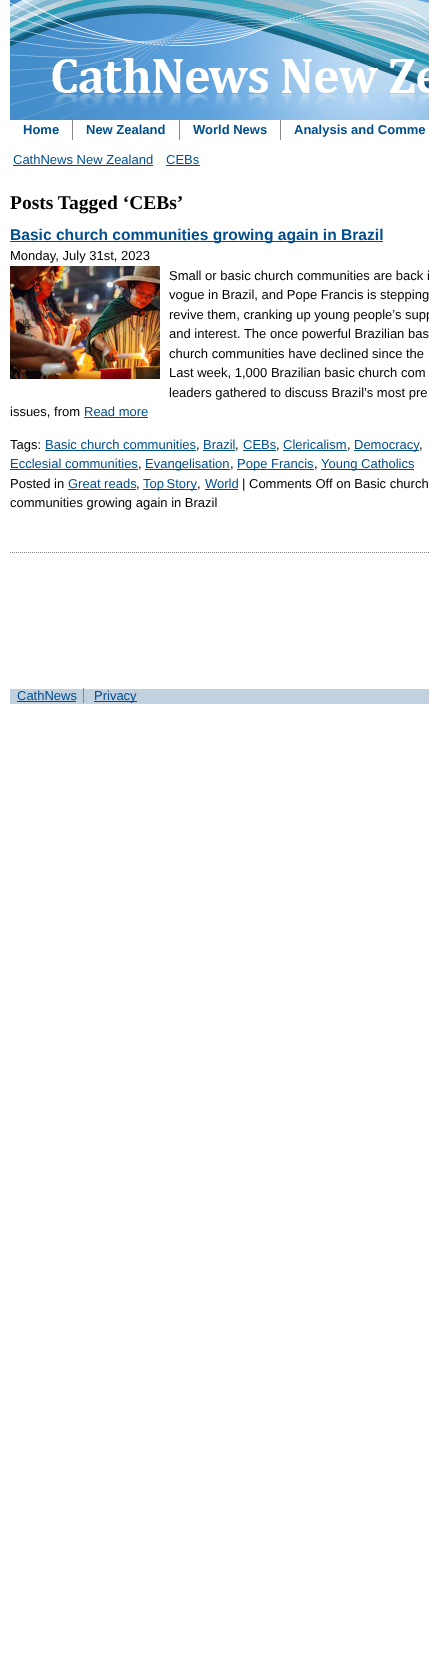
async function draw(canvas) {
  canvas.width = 429;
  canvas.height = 1673;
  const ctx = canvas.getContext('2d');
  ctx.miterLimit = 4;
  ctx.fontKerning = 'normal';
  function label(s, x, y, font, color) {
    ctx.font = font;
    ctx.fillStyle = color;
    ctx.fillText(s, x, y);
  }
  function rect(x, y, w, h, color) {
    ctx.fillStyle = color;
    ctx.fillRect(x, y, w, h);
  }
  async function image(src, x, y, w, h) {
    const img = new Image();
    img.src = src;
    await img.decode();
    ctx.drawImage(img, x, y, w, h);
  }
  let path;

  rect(0, 0, 429, 1673, '#fff');
  await image('assets/img1.png', 10, 0, 419, 120);
  rect(72, 120, 1, 20, '#888');
  label('Home', 23, 134, 'bold 13px Liberation Sans', '#004e8e');
  rect(179, 120, 1, 20, '#888');
  label('New Zealand', 86, 134, 'bold 13px Liberation Sans', '#004e8e');
  rect(280, 120, 1, 20, '#888');
  label('World News', 193, 134, 'bold 13px Liberation Sans', '#004e8e');
  label('Analysis and Comme', 294, 134, 'bold 13px Liberation Sans', '#004e8e');
  label('CathNews New Zealand', 13, 164, '13px Liberation Sans', '#004e8e');
  rect(13, 165, 140, 1, '#004e8e');
  label('CEBs', 166, 164, '13px Liberation Sans', '#004e8e');
  rect(166, 165, 34, 1, '#004e8e');
  label('Posts Tagged ‘CEBs’', 10, 209, 'bold 19.5px Liberation Serif', '#000');
  path = new Path2D('M10 552.5H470');
  ctx.strokeStyle = '#808080';
  ctx.setLineDash([1, 1]);
  ctx.stroke(path);
  rect(10, 241, 373, 1, '#004e8e');
  label('Basic church communities growing again in Brazil', 10, 240, 'bold 15.6px Liberation Sans', '#004e8e');
  label('Monday, July 31st, 2023', 10, 260, '13px Liberation Sans', '#000');
  await image('assets/img2.png', 10, 266, 150, 113);
  label('Small or basic church communities are back i', 169, 280, '13px Liberation Sans', '#000');
  label('vogue in Brazil, and Pope Francis is stepping', 169, 299, '13px Liberation Sans', '#000');
  label('revive them, cranking up young people’s supp', 169, 319, '13px Liberation Sans', '#000');
  label('and interest. The once powerful Brazilian bas', 169, 338, '13px Liberation Sans', '#000');
  label('church communities have declined since the', 169, 358, '13px Liberation Sans', '#000');
  label('Last week, 1,000 Brazilian basic church com', 169, 377, '13px Liberation Sans', '#000');
  label('leaders gathered to discuss Brazil’s most pre', 169, 397, '13px Liberation Sans', '#000');
  label('issues, from', 10, 416, '13px Liberation Sans', '#000');
  label('Read more', 84, 416, '13px Liberation Sans', '#004e8e');
  rect(84, 417, 64, 1, '#004e8e');
  label('Tags:', 10, 449, '13px Liberation Sans', '#000');
  label('Basic church communities', 45, 449, '13px Liberation Sans', '#004e8e');
  rect(45, 450, 151, 1, '#004e8e');
  label(',', 196, 449, '13px Liberation Sans', '#000');
  label('Brazil', 203, 449, '13px Liberation Sans', '#004e8e');
  rect(203, 450, 32, 1, '#004e8e');
  label(',', 235, 449, '13px Liberation Sans', '#000');
  label('CEBs', 243, 449, '13px Liberation Sans', '#004e8e');
  rect(243, 450, 33, 1, '#004e8e');
  label(',', 276, 449, '13px Liberation Sans', '#000');
  label('Clericalism', 283, 449, '13px Liberation Sans', '#004e8e');
  rect(283, 450, 64, 1, '#004e8e');
  label(',', 347, 449, '13px Liberation Sans', '#000');
  rect(354, 450, 65, 1, '#004e8e');
  label('Democracy', 354, 449, '13px Liberation Sans', '#004e8e');
  label(',', 419, 449, '13px Liberation Sans', '#000');
  label('Ecclesial communities', 10, 468, '13px Liberation Sans', '#004e8e');
  rect(10, 469, 128, 1, '#004e8e');
  label(',', 138, 468, '13px Liberation Sans', '#000');
  rect(145, 469, 85, 1, '#004e8e');
  label('Evangelisation', 145, 468, '13px Liberation Sans', '#004e8e');
  label(',', 230, 468, '13px Liberation Sans', '#000');
  rect(237, 469, 77, 1, '#004e8e');
  label('Pope Francis', 237, 468, '13px Liberation Sans', '#004e8e');
  label(',', 314, 468, '13px Liberation Sans', '#000');
  rect(321, 469, 93, 1, '#004e8e');
  label('Young Catholics', 321, 468, '13px Liberation Sans', '#004e8e');
  label('Posted in', 10, 488, '13px Liberation Sans', '#000');
  label('Great reads', 68, 488, '13px Liberation Sans', '#004e8e');
  rect(68, 489, 68, 1, '#004e8e');
  label(',', 136, 488, '13px Liberation Sans', '#000');
  rect(143, 489, 54, 1, '#004e8e');
  ctx.wordSpacing = '-1px';
  label('Top Story', 143, 488, '13px Liberation Sans', '#004e8e');
  ctx.wordSpacing = '0px';
  label(',', 197, 488, '13px Liberation Sans', '#000');
  label('World', 205, 488, '13px Liberation Sans', '#004e8e');
  rect(205, 489, 33, 1, '#004e8e');
  label('| Comments Off on Basic church', 242, 488, '13px Liberation Sans', '#000');
  label('communities growing again in Brazil', 10, 507, '13px Liberation Sans', '#000');
  rect(10, 689, 419, 15, '#c1d1e0');
  label('CathNews', 17, 700, '13px Liberation Sans', '#004e8e');
  rect(83, 688, 1, 15, '#888');
  rect(17, 701, 59, 1, '#004e8e');
  rect(94, 701, 43, 1, '#004e8e');
  label('Privacy', 94, 700, '13px Liberation Sans', '#004e8e');
}

draw(document.querySelector('canvas'));
